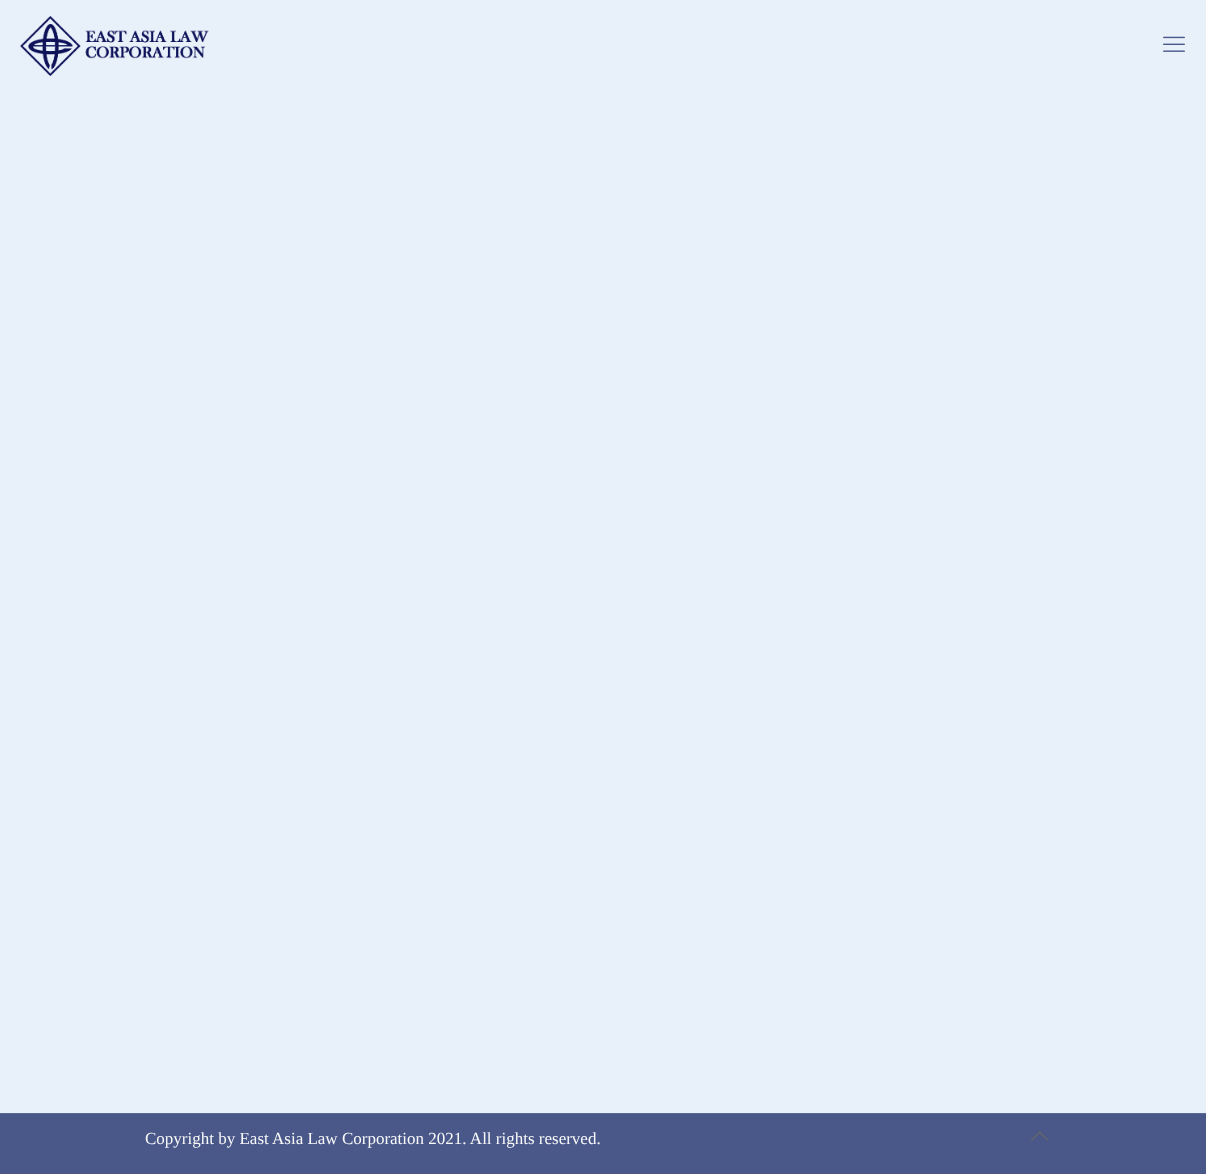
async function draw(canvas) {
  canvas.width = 1206;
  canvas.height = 1174;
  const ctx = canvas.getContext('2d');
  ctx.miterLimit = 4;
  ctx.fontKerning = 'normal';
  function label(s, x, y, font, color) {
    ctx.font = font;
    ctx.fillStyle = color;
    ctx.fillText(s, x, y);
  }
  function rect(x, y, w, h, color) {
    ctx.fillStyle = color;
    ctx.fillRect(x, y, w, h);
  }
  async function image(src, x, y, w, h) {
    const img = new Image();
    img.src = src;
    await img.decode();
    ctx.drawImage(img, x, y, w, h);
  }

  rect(0, 0, 1206, 1174, '#e8f1f9');
  await image('assets/img1.png', 20, 16, 189, 60);
  await image('assets/img2.png', 1163, 36, 22, 16);
  rect(0, 1114, 1206, 60, '#495889');
  rect(0, 1113, 1206, 1, '#5b6995');
  label('Copyright by East Asia Law Corporation 2021. All rights reserved.', 145, 1144, '17px Liberation Serif', '#f9f9f9');
  await image('assets/img3.png', 1031, 1131, 17, 10);
}

draw(document.querySelector('canvas'));
